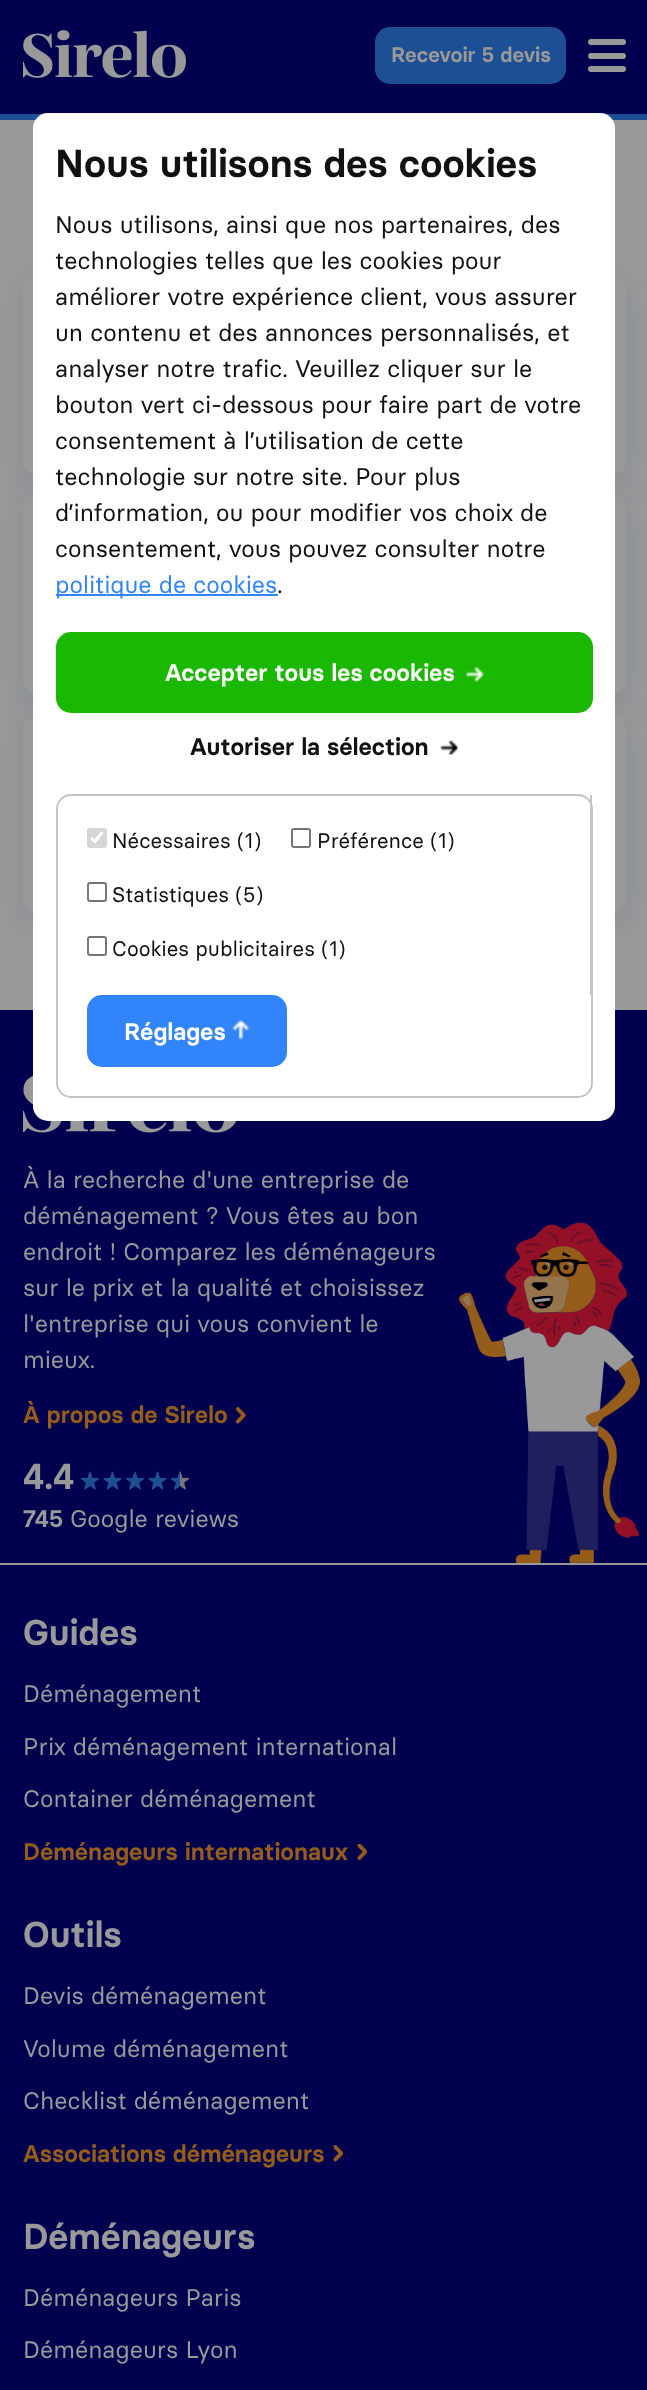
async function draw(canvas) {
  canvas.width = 647;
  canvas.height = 2390;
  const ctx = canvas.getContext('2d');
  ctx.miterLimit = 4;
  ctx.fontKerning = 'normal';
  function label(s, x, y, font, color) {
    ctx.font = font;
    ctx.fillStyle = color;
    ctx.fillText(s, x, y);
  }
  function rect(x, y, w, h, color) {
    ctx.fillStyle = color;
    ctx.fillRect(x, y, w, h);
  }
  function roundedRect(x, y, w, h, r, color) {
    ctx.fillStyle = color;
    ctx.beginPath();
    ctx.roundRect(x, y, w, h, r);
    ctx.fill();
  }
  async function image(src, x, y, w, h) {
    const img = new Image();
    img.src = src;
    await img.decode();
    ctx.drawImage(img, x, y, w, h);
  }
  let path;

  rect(0, 0, 647, 2390, '#999');
  rect(0, 0, 647, 114, '#00004f');
  rect(0, 114, 647, 6, '#1d4f95');
  await image('assets/img1.png', 23, 30, 163, 48);
  roundedRect(375, 27, 191, 57, 15, '#1d4f95');
  label('Recevoir 5 devis', 391, 62, '600 21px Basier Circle', '#999');
  ctx.beginPath();
  ctx.roundRect(588, 53, 20, 6, [3, 0, 0, 3]);
  ctx.fill();
  ctx.beginPath();
  ctx.roundRect(588, 39, 20, 6, [3, 0, 0, 3]);
  ctx.fill();
  ctx.beginPath();
  ctx.roundRect(588, 66, 20, 6, [3, 0, 0, 3]);
  ctx.fill();
  ctx.beginPath();
  ctx.roundRect(608, 53, 18, 6, [0, 3, 3, 0]);
  ctx.fill();
  ctx.beginPath();
  ctx.roundRect(608, 39, 18, 6, [0, 3, 3, 0]);
  ctx.fill();
  ctx.beginPath();
  ctx.roundRect(608, 66, 18, 6, [0, 3, 3, 0]);
  ctx.fill();
  ctx.save();
  path = new Path2D('M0 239H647V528H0ZM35 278H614C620.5 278 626 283.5 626 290V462C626 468.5 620.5 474 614 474H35C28.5 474 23 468.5 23 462V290C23 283.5 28.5 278 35 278Z');
  ctx.clip(path, 'evenodd');
  ctx.fillStyle = '#153b7126';
  ctx.filter = 'blur(15px)';
  ctx.beginPath();
  ctx.roundRect(23, 285, 603, 197, 12);
  ctx.fill();
  ctx.filter = 'none';
  ctx.restore();
  ctx.save();
  path = new Path2D('M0 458H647V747H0ZM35 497H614C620.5 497 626 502.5 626 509V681C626 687.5 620.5 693 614 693H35C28.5 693 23 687.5 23 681V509C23 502.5 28.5 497 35 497Z');
  ctx.clip(path, 'evenodd');
  ctx.fillStyle = '#153b7126';
  ctx.filter = 'blur(15px)';
  ctx.beginPath();
  ctx.roundRect(23, 504, 603, 197, 12);
  ctx.fill();
  ctx.filter = 'none';
  ctx.restore();
  ctx.save();
  path = new Path2D('M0 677H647V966H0ZM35 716H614C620.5 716 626 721.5 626 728V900C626 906.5 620.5 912 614 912H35C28.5 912 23 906.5 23 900V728C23 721.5 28.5 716 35 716Z');
  ctx.clip(path, 'evenodd');
  ctx.fillStyle = '#153b7126';
  ctx.filter = 'blur(15px)';
  ctx.beginPath();
  ctx.roundRect(23, 723, 603, 197, 12);
  ctx.fill();
  ctx.filter = 'none';
  ctx.restore();
  rect(0, 1010, 647, 1380, '#00004f');
  await image('assets/img5.png', 23, 1076, 214, 57);
  roundedRect(33, 113, 582, 1008, 15, '#fff');
  label('Nous utilisons des cookies', 55, 177, '600 39px Basier Circle', '#111');
  label('Nous utilisons, ainsi que nos partenaires, des', 55, 233, '24px Basier Circle', '#111');
  label('technologies telles que les cookies pour', 55, 269, '24px Basier Circle', '#111');
  label('améliorer votre expérience client, vous assurer', 55, 305, '24px Basier Circle', '#111');
  label('un contenu et des annonces personnalisés, et', 55, 341, '24px Basier Circle', '#111');
  label('analyser notre trafic. Veuillez cliquer sur le', 55, 377, '24px Basier Circle', '#111');
  label('bouton vert ci-dessous pour faire part de votre', 55, 413, '24px Basier Circle', '#111');
  label('consentement à l’utilisation de cette', 55, 449, '24px Basier Circle', '#111');
  label('technologie sur notre site. Pour plus', 55, 485, '24px Basier Circle', '#111');
  label('d’information, ou pour modifier vos choix de', 55, 521, '24px Basier Circle', '#111');
  label('consentement, vous pouvez consulter notre', 55, 557, '24px Basier Circle', '#111');
  rect(56, 594, 222, 2, '#3184f9');
  label('politique de cookies', 55, 593, '24px Basier Circle', '#3184f9');
  label('.', 277, 593, '24px Basier Circle', '#111');
  roundedRect(56, 632, 537, 81, 15, '#1ab800');
  label('Accepter tous les cookies', 165, 681, '600 24px Basier Circle', '#fff');
  await image('assets/img2.png', 466, 667, 18, 15);
  label('Autoriser la sélection', 190, 755, '600 24px Basier Circle', '#111');
  await image('assets/img3.png', 440, 740, 18, 15);
  ctx.beginPath();
  ctx.roundRect(57, 795, 535, 302, 14);
  ctx.strokeStyle = '#c4c4c4';
  ctx.lineWidth = 2;
  ctx.stroke();
  rect(590, 795, 2, 200, '#c4c4c4');
  roundedRect(87, 828, 20, 20, 3, '#d6d6d6');
  path = new Path2D('M91 838L95 841.5L102.5 832');
  ctx.strokeStyle = '#fff';
  ctx.lineWidth = 3.1;
  ctx.stroke(path);
  label('Nécessaires (1)', 112, 848, '21px Basier Circle', '#111');
  ctx.beginPath();
  ctx.roundRect(292, 829, 18, 18, 2);
  ctx.strokeStyle = '#767676';
  ctx.lineWidth = 2;
  ctx.stroke();
  label('Préférence (1)', 317, 848, '21px Basier Circle', '#111');
  ctx.beginPath();
  ctx.roundRect(88, 883, 18, 18, 2);
  ctx.stroke();
  label('Statistiques (5)', 112, 902, '21px Basier Circle', '#111');
  ctx.beginPath();
  ctx.roundRect(88, 937, 18, 18, 2);
  ctx.stroke();
  label('Cookies publicitaires (1)', 112, 956, '21px Basier Circle', '#111');
  roundedRect(87, 995, 200, 72, 15, '#3184f9');
  label('Réglages', 124, 1040, '600 24px Basier Circle', '#fff');
  await image('assets/img4.png', 232, 1019, 18, 21);
  rect(0, 1563, 647, 2, '#999');
  label('À la recherche d\'une entreprise de', 23, 1188, '24px Basier Circle', '#999');
  label('déménagement ? Vous êtes au bon', 23, 1224, '24px Basier Circle', '#999');
  label('endroit ! Comparez les déménageurs', 23, 1260, '24px Basier Circle', '#999');
  label('sur le prix et la qualité et choisissez', 23, 1296, '24px Basier Circle', '#999');
  label('l\'entreprise qui vous convient le', 23, 1332, '24px Basier Circle', '#999');
  label('mieux.', 23, 1368, '24px Basier Circle', '#999');
  label('À propos de Sirelo', 23, 1423, '600 24px Basier Circle', '#955d19');
  await image('assets/img6.png', 236, 1407, 10, 17);
  label('4.4', 23, 1489, '600 36px Basier Circle', '#999');
  await image('assets/img7.png', 81, 1471, 18, 19);
  await image('assets/img8.png', 103, 1471, 19, 19);
  await image('assets/img7.png', 126, 1471, 18, 19);
  await image('assets/img9.png', 148, 1471, 19, 19);
  await image('assets/img10.png', 171, 1471, 18, 19);
  label('745', 23, 1527, '600 24px Basier Circle', '#999');
  label('Google reviews', 70, 1527, '24px Basier Circle', '#999');
  await image('assets/img11.png', 459, 1222, 182, 341);
  label('Guides', 23, 1645, '600 36px Basier Circle', '#999');
  label('Déménagement', 23, 1702, '24px Basier Circle', '#999');
  label('Prix déménagement international', 23, 1755, '24px Basier Circle', '#999');
  label('Container déménagement', 23, 1807, '24px Basier Circle', '#999');
  label('Déménageurs internationaux', 23, 1860, '600 24px Basier Circle', '#955d19');
  await image('assets/img12.png', 357, 1844, 11, 16);
  label('Outils', 23, 1947, '600 36px Basier Circle', '#999');
  label('Devis déménagement', 23, 2004, '24px Basier Circle', '#999');
  label('Volume déménagement', 23, 2057, '24px Basier Circle', '#999');
  label('Checklist déménagement', 23, 2109, '24px Basier Circle', '#999');
  label('Associations déménageurs', 23, 2162, '600 24px Basier Circle', '#955d19');
  await image('assets/img13.png', 333, 2145, 11, 17);
  label('Déménageurs', 23, 2249, '600 36px Basier Circle', '#999');
  label('Déménageurs Paris', 23, 2306, '24px Basier Circle', '#999');
  label('Déménageurs Lyon', 23, 2358, '24px Basier Circle', '#999');
}

draw(document.querySelector('canvas'));
